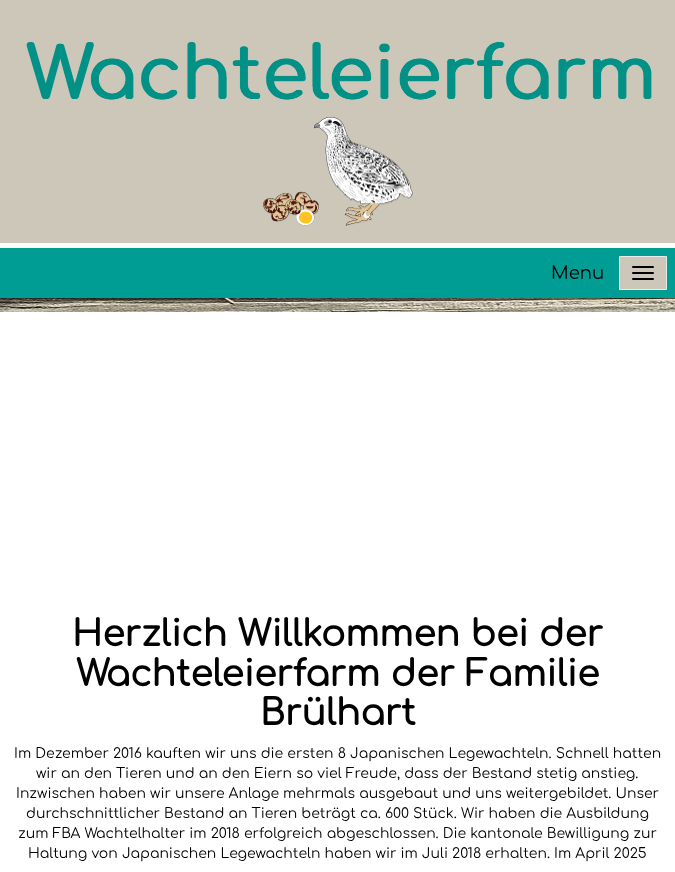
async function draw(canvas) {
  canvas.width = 675;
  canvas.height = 872;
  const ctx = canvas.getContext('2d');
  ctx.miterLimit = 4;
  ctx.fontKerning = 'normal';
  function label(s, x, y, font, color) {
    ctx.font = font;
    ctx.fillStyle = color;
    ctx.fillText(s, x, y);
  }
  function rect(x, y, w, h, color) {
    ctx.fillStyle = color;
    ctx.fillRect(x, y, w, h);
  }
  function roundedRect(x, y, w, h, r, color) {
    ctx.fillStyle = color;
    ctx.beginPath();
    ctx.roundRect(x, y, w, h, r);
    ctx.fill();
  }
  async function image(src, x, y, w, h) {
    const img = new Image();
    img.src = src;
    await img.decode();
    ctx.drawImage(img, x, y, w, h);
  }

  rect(0, 0, 675, 872, '#fff');
  await image('assets/img1.png', 0, 298, 675, 14);
  rect(0, 0, 675, 243, '#cdc7b9');
  await image('assets/img2.png', 26, 42, 626, 58);
  await image('assets/img3.png', 263, 117, 150, 109);
  rect(0, 248, 675, 50, '#009d94');
  label('Menu', 551, 279, '18px Comfortaa', '#000');
  ctx.fillStyle = '#cdc7b9';
  ctx.beginPath();
  ctx.rect(619.5, 256.5, 47, 33);
  ctx.fill();
  ctx.strokeStyle = '#eaeaea';
  ctx.stroke();
  roundedRect(632, 266, 22, 2, 1, '#000');
  roundedRect(632, 272, 22, 2, 1, '#000');
  roundedRect(632, 278, 22, 2, 1, '#000');
  label('Herzlich Willkommen bei der', 72, 646, 'bold 36px Comfortaa', '#000');
  label('Wachteleierfarm der Familie', 76, 686, 'bold 36px Comfortaa', '#000');
  label('Brülhart', 260, 725, 'bold 36px Comfortaa', '#000');
  label('Im Dezember 2016 kauften wir uns die ersten 8 Japanischen Legewachteln. Schnell hatten', 14, 758, '14px Comfortaa', '#000');
  label('wir an den Tieren und an den Eiern so viel Freude, dass der Bestand stetig anstieg.', 36, 778, '14px Comfortaa', '#000');
  label('Inzwischen haben wir unsere Anlage mehrmals ausgebaut und uns weitergebildet. Unser', 16, 798, '14px Comfortaa', '#000');
  label('durchschnittlicher Bestand an Tieren beträgt ca. 600 Stück. Wir haben die Ausbildung', 26, 818, '14px Comfortaa', '#000');
  label('zum FBA Wachtelhalter im 2018 erfolgreich abgeschlossen. Die kantonale Bewilligung zur', 18, 838, '14px Comfortaa', '#000');
  label('Haltung von Japanischen Legewachteln haben wir im Juli 2018 erhalten. Im April 2025', 28, 858, '14px Comfortaa', '#000');
}

draw(document.querySelector('canvas'));
